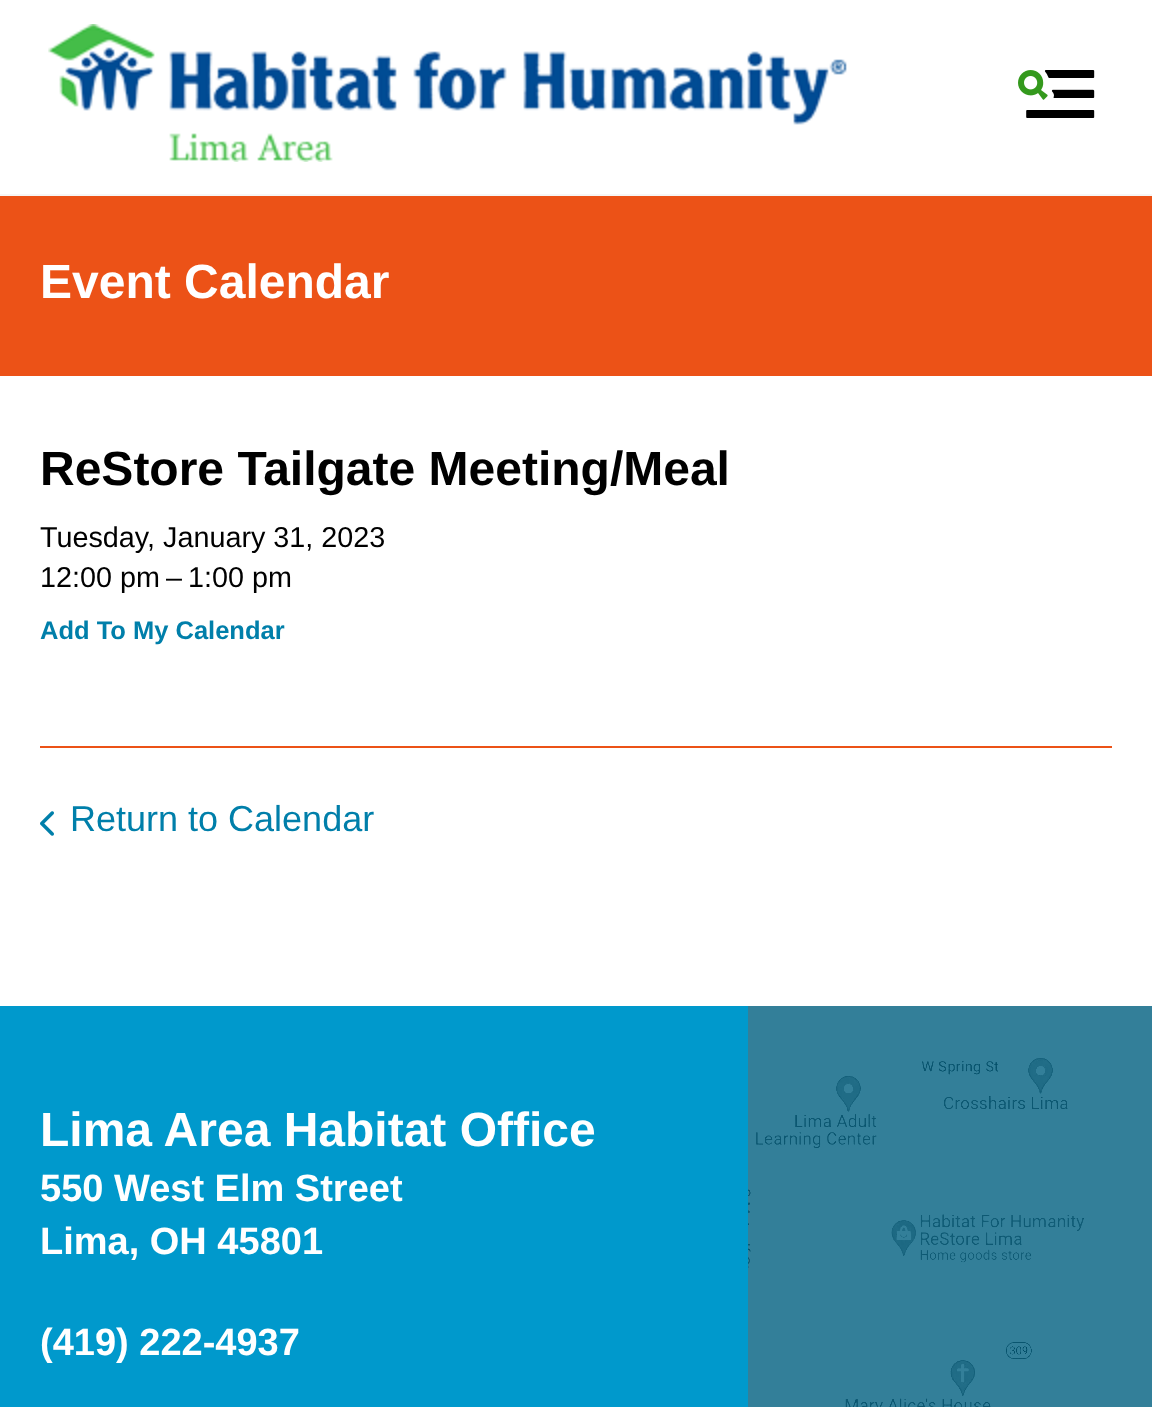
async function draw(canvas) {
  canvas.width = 1152;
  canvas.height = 1407;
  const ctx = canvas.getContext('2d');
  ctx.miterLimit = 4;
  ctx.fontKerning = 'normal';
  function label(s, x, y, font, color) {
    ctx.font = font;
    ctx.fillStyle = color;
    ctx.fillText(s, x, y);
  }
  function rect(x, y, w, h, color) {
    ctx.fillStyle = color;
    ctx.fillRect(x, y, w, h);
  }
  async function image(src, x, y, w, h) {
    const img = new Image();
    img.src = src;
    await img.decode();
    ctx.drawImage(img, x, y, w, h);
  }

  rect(0, 0, 1152, 1407, '#fff');
  rect(0, 194, 1152, 2, '#f6f6f6');
  await image('assets/img1.png', 48, 24, 799, 138);
  await image('assets/img2.png', 1018, 70, 77, 48);
  rect(0, 196, 1152, 180, '#ec5217');
  label('Event Calendar', 40, 298, 'bold 48px Liberation Sans', '#fff');
  rect(40, 746, 1072, 2, '#ec5217');
  label('ReStore Tailgate Meeting/Meal', 40, 485, 'bold 48px Liberation Sans', '#000');
  label('Tuesday, January 31, 2023', 40, 547, '28.75px Liberation Sans', '#000');
  label('12:00 pm', 40, 587, '28.75px Liberation Sans', '#000');
  label('–', 166, 587, '28.75px Liberation Sans', '#000');
  label('1:00 pm', 188, 587, '28.75px Liberation Sans', '#000');
  label('Add To My Calendar', 40, 639, 'bold 25.5px Liberation Sans', '#007faa');
  await image('assets/img3.png', 40, 811, 14, 25);
  label('Return to Calendar', 70, 831, '36px Liberation Sans', '#007faa');
  rect(0, 1006, 1152, 401, '#09c');
  label('Lima Area Habitat Office', 40, 1146, 'bold 48px Liberation Sans', '#fff');
  await image('assets/img4.png', 748, 1006, 404, 401);
  label('550 West Elm Street', 40, 1201, 'bold 38px Liberation Sans', '#fff');
  label('Lima, OH 45801', 40, 1254, 'bold 38px Liberation Sans', '#fff');
  label('(419) 222-4937', 40, 1355, 'bold 38px Liberation Sans', '#fff');
}

draw(document.querySelector('canvas'));
